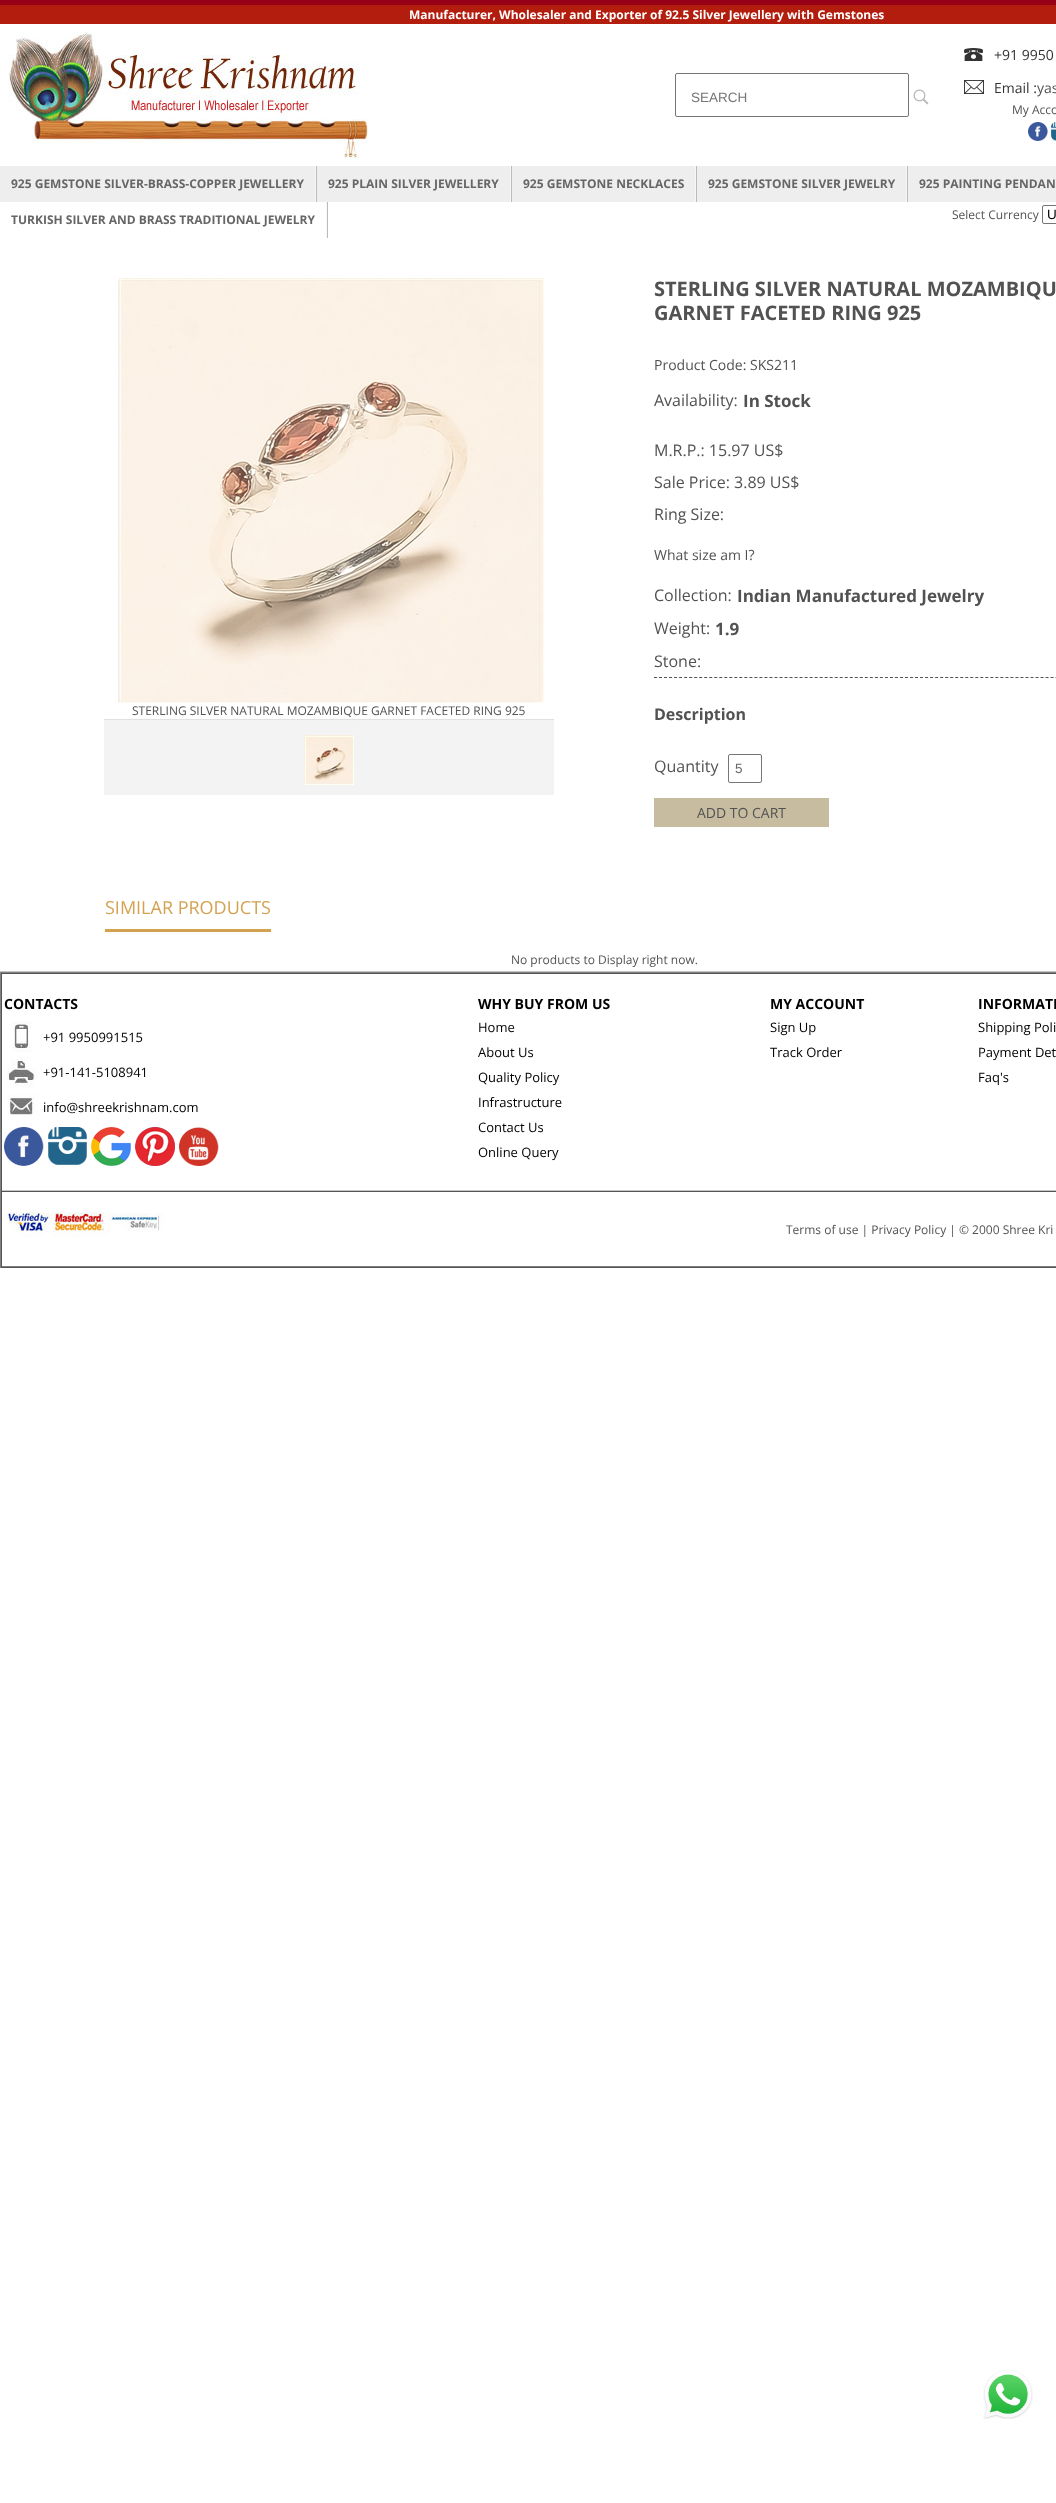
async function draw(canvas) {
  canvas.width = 1056;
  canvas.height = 2503;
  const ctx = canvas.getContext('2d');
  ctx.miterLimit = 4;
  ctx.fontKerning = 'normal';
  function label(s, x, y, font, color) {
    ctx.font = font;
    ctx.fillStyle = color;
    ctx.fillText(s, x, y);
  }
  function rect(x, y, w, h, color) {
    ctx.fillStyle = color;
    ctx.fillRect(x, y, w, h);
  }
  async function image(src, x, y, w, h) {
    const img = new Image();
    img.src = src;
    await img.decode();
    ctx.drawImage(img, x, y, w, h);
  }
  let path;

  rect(0, 0, 1056, 2503, '#fff');
  rect(0, 0, 1056, 5, '#970016');
  rect(0, 5, 1056, 19, '#b31d0e');
  label('Manufacturer, Wholesaler and Exporter of 92.5 Silver Jewellery with Gemstones', 409, 19, 'bold 12px Open Sans', '#fff');
  await image('assets/img1.png', 8, 31, 360, 127);
  ctx.beginPath();
  ctx.roundRect(675.5, 73.5, 233, 43, 1.5);
  ctx.strokeStyle = '#767676';
  ctx.stroke();
  label('SEARCH', 691, 102, '13.5px Liberation Sans', '#757575');
  await image('assets/img2.png', 913, 89, 16, 16);
  await image('assets/img3.png', 964, 48, 19, 13);
  label('+91 9950', 994, 60, '14px Open Sans', '#333');
  await image('assets/img4.png', 964, 80, 20, 14);
  label('Email :', 994, 93, '14px Open Sans', '#333');
  label('yas', 1037, 93, '14px Open Sans', '#525252');
  label('My Acco', 1012, 114, '12px Open Sans', '#525252');
  await image('assets/img5.png', 1028, 122, 20, 19);
  await image('assets/img6.png', 1051, 122, 5, 19);
  rect(0, 166, 1056, 36, '#eee');
  label('925 GEMSTONE SILVER-BRASS-COPPER JEWELLERY', 11, 188, 'bold 12px Open Sans', '#666');
  rect(316, 166, 1, 36, '#bbb');
  rect(315, 166, 1, 36, '#f7f7f7');
  label('925 PLAIN SILVER JEWELLERY', 328, 188, 'bold 12px Open Sans', '#666');
  rect(511, 166, 1, 36, '#bbb');
  rect(510, 166, 1, 36, '#f7f7f7');
  label('925 GEMSTONE NECKLACES', 523, 188, 'bold 12px Open Sans', '#666');
  rect(696, 166, 1, 36, '#bbb');
  rect(695, 166, 1, 36, '#f7f7f7');
  label('925 GEMSTONE SILVER JEWELRY', 708, 188, 'bold 12px Open Sans', '#666');
  rect(907, 166, 1, 36, '#bbb');
  rect(906, 166, 1, 36, '#f7f7f7');
  label('925 PAINTING PENDAN', 919, 188, 'bold 12px Open Sans', '#666');
  label('TURKISH SILVER AND BRASS TRADITIONAL JEWELRY', 11, 224, 'bold 12px Open Sans', '#666');
  rect(327, 202, 1, 36, '#bbb');
  rect(326, 202, 1, 36, '#f7f7f7');
  label('Select Currency', 952, 219, '12px Open Sans', '#525252');
  ctx.beginPath();
  ctx.roundRect(1042.5, 205.5, 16, 18, 1.5);
  ctx.stroke();
  label('U', 1047, 219, '13.5px Liberation Sans', '#000');
  ctx.strokeStyle = '#eee';
  ctx.strokeRect(118.5, 280.5, 421, 421);
  await image('assets/img7.png', 119, 278, 425, 425);
  label('STERLING SILVER NATURAL MOZAMBIQUE GARNET FACETED RING 925', 132, 715, '12px Open Sans', '#525252');
  rect(104, 720, 450, 75, '#f3f3f3');
  rect(104, 719, 450, 1, '#e1e1e1');
  await image('assets/img8.png', 304, 735, 50, 50);
  label('STERLING SILVER NATURAL MOZAMBIQU', 654, 296, 'bold 20px Open Sans', '#525252');
  label('GARNET FACETED RING 925', 654, 320, 'bold 20px Open Sans', '#525252');
  label('Product Code: SKS211', 654, 370, '14px Open Sans', '#525252');
  label('Availability:', 654, 406, '16px Open Sans', '#525252');
  label('In Stock', 743, 407, 'bold 17px Open Sans', '#525252');
  label('M.R.P.: 15.97 US$', 654, 456, '16px Open Sans', '#525252');
  label('Sale Price: 3.89 US$', 654, 488, '16px Open Sans', '#525252');
  label('Ring Size:', 654, 520, '16px Open Sans', '#525252');
  label('What size am I?', 654, 560, '14px Open Sans', '#525252');
  label('Collection:', 654, 601, '16px Open Sans', '#525252');
  label('Indian Manufactured Jewelry', 737, 602, 'bold 17px Open Sans', '#525252');
  label('Weight:', 654, 634, '16px Open Sans', '#525252');
  label('1.9', 715, 635, 'bold 17px Open Sans', '#525252');
  label('Stone:', 654, 667, '16px Open Sans', '#525252');
  path = new Path2D('M654 677.5H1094');
  ctx.strokeStyle = '#525252';
  ctx.setLineDash([3, 2.02]);
  ctx.stroke(path);
  label('Description', 654, 720, 'bold 16px Open Sans', '#525252');
  label('Quantity', 654, 772, '16px Open Sans', '#525252');
  ctx.beginPath();
  ctx.roundRect(728.5, 754.5, 33, 28, 1.5);
  ctx.strokeStyle = '#767676';
  ctx.setLineDash([]);
  ctx.stroke();
  label('5', 735, 773, '13.5px Liberation Sans', '#666');
  rect(654, 798, 175, 29, '#c7bca0');
  label('ADD TO CART', 697, 818, '14px Open Sans', '#525252');
  rect(105, 929, 166, 3, '#d3a251');
  label('SIMILAR PRODUCTS', 105, 914, '18px Open Sans', '#d3a251');
  label('No products to Display right now.', 511, 964, '12px Open Sans', '#525252');
  rect(0, 971, 1056, 1, '#c5c5c5');
  rect(0, 972, 1056, 1, '#808080');
  rect(0, 1267, 1056, 1, '#555');
  rect(0, 972, 1, 296, '#808080');
  rect(1, 973, 1055, 1, '#555');
  rect(1, 1190, 1055, 1, '#c5c5c5');
  rect(1, 973, 1, 218, '#555');
  label('CONTACTS', 4, 1009, 'bold 14px Open Sans', '#000');
  await image('assets/img9.png', 12, 1021, 20, 31);
  label('+91 9950991515', 43, 1042, '13px Open Sans', '#000');
  await image('assets/img10.png', 7, 1057, 31, 30);
  label('+91-141-5108941', 43, 1077, '13px Open Sans', '#000');
  await image('assets/img11.png', 7, 1094, 31, 21);
  label('info@shreekrishnam.com', 43, 1112, '13px Open Sans', '#000');
  await image('assets/img12.png', 4, 1127, 40, 39);
  await image('assets/img13.png', 48, 1127, 39, 38);
  await image('assets/img14.png', 91, 1127, 40, 39);
  await image('assets/img15.png', 135, 1127, 40, 39);
  await image('assets/img16.png', 179, 1127, 40, 39);
  label('WHY BUY FROM US', 478, 1009, 'bold 14px Open Sans', '#000');
  label('Home', 478, 1032, '13px Open Sans', '#000');
  label('About Us', 478, 1057, '13px Open Sans', '#000');
  label('Quality Policy', 478, 1082, '13px Open Sans', '#000');
  label('Infrastructure', 478, 1107, '13px Open Sans', '#000');
  label('Contact Us', 478, 1132, '13px Open Sans', '#000');
  label('Online Query', 478, 1157, '13px Open Sans', '#000');
  label('MY ACCOUNT', 770, 1009, 'bold 14px Open Sans', '#000');
  label('Sign Up', 770, 1032, '13px Open Sans', '#000');
  label('Track Order', 770, 1057, '13px Open Sans', '#000');
  label('INFORMATI', 978, 1009, 'bold 14px Open Sans', '#000');
  label('Shipping Poli', 978, 1032, '13px Open Sans', '#000');
  label('Payment Det', 978, 1057, '13px Open Sans', '#000');
  label('Faq\'s', 978, 1082, '13px Open Sans', '#000');
  rect(1, 1191, 1055, 1, '#555');
  rect(1, 1266, 1055, 1, '#808080');
  rect(1, 1191, 1, 76, '#555');
  await image('assets/img17.png', 4, 1212, 160, 25);
  label('Terms of use | Privacy Policy | © 2000 Shree Kri', 786, 1234, '12px Open Sans', '#525252');
  await image('assets/img18.png', 983, 2370, 50, 49);
}

draw(document.querySelector('canvas'));
